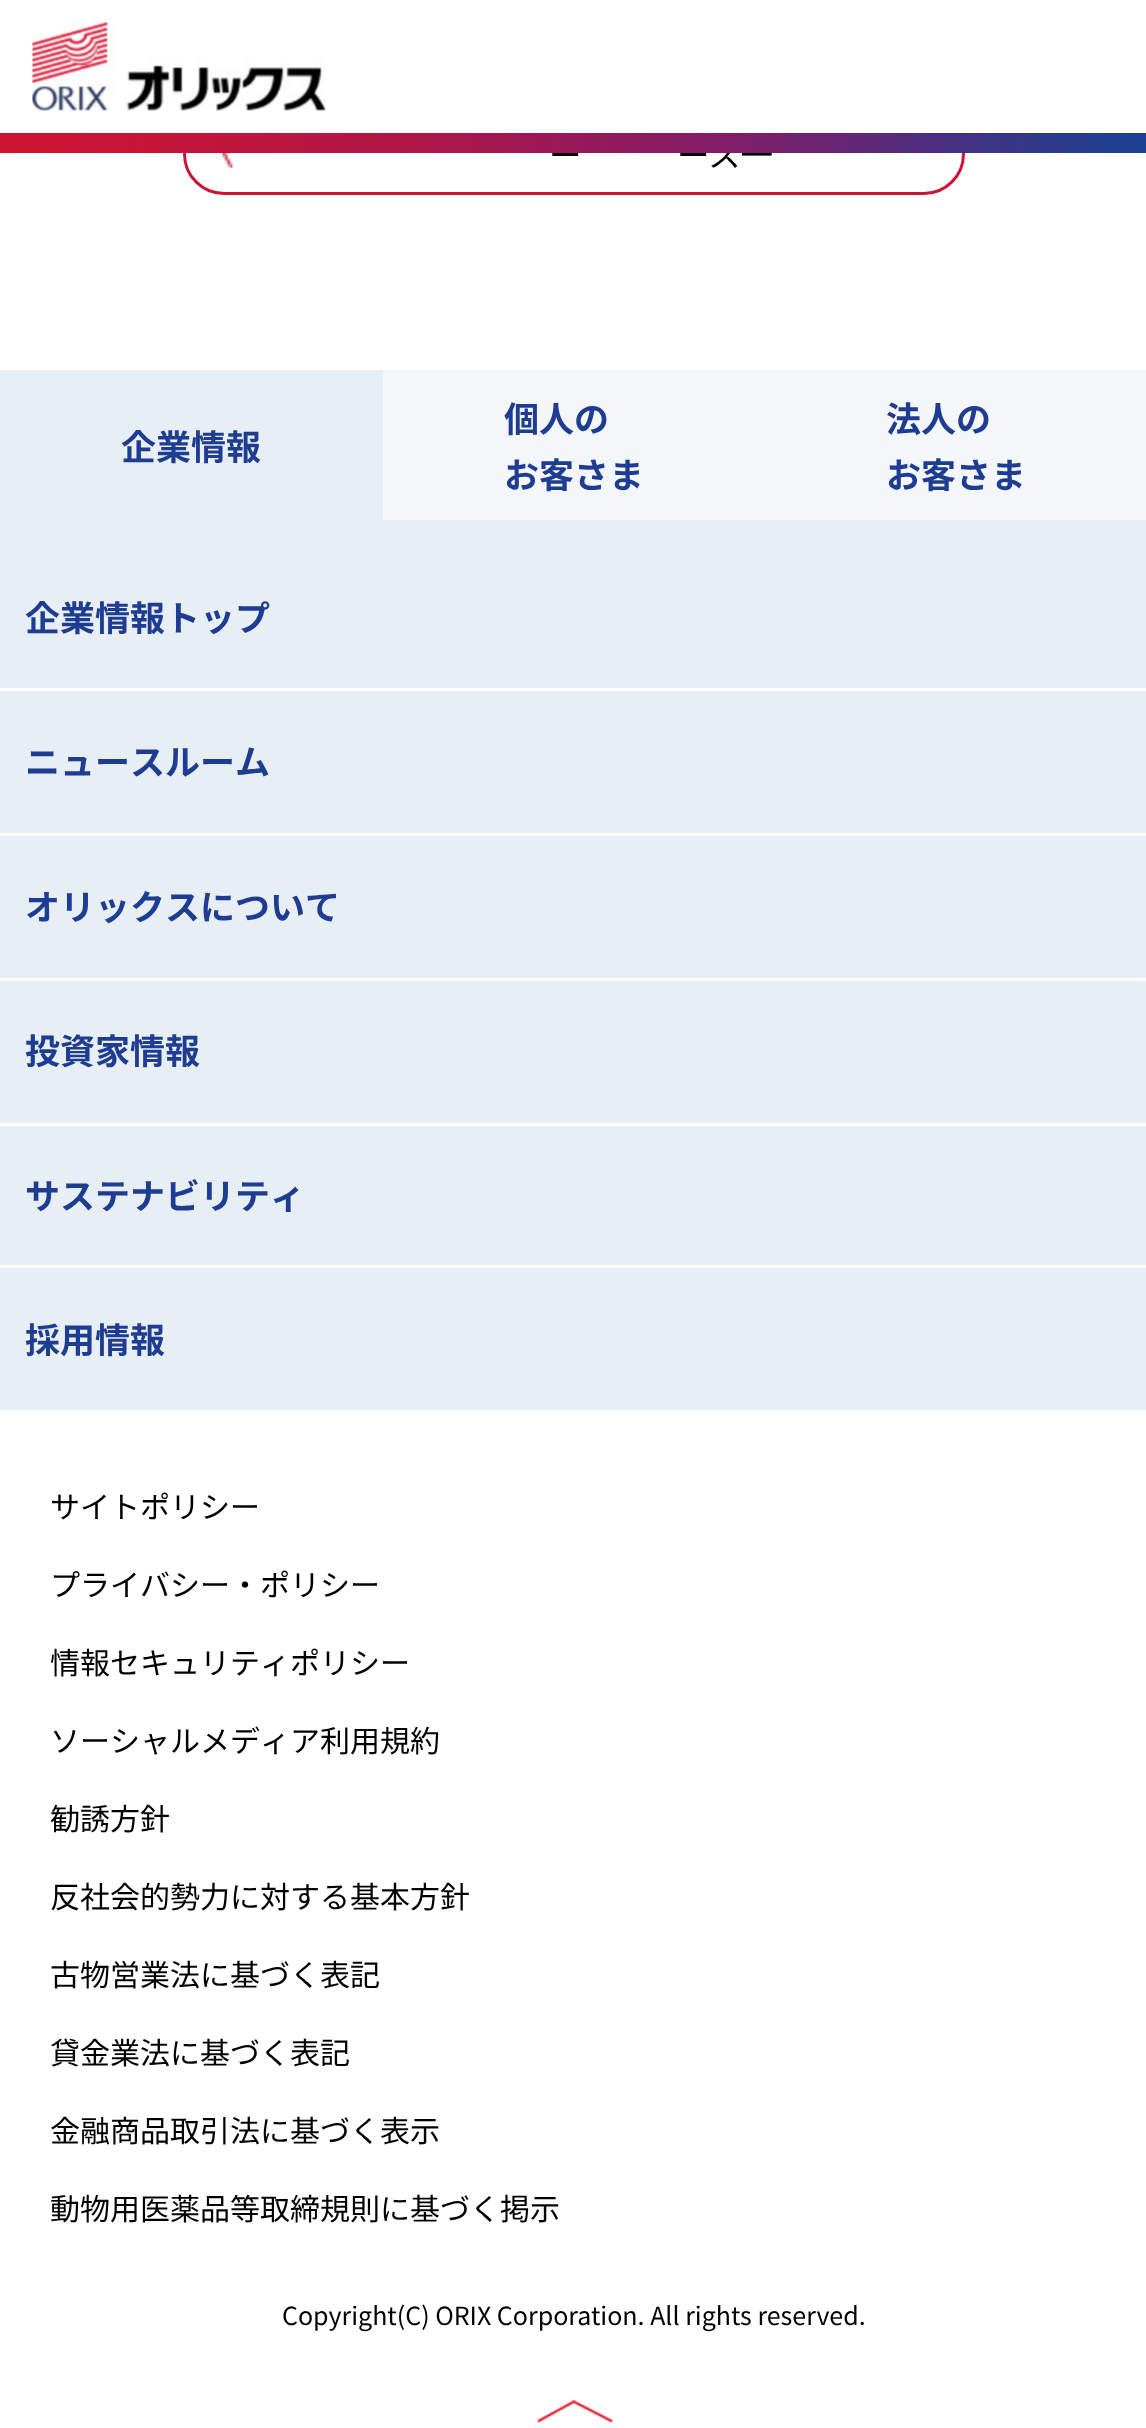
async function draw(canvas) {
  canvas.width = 1146;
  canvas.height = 2428;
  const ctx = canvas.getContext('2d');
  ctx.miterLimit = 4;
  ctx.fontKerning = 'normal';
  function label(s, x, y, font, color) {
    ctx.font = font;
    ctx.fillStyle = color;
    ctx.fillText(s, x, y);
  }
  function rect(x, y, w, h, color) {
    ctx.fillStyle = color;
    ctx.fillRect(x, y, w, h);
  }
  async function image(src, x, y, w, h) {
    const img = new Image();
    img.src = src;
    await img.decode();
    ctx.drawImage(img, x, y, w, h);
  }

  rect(0, 0, 1146, 2428, '#fff');
  await image('assets/img1.png', 32, 22, 294, 89);
  await image('assets/img3.png', 222, 153, 11, 15);
  ctx.beginPath();
  ctx.roundRect(184.5, 114.5, 779, 79, 39.5);
  ctx.strokeStyle = '#cc1433';
  ctx.lineWidth = 3;
  ctx.stroke();
  rect(188, 113, 772, 20, '#fff');
  label('ー', 549, 167, '32.5px Noto Sans JP', '#000');
  label('ース一', 677, 167, '32.5px Noto Sans JP', '#000');
  await image('assets/img2.png', 0, 133, 1146, 20);
  rect(383, 370, 763, 150, '#f4f7fa');
  rect(0, 370, 383, 150, '#e8eff4');
  label('企業情報', 121, 460, 'bold 35px Noto Sans JP', '#1e3c91');
  label('個人の', 504, 432, 'bold 35px Noto Sans JP', '#1e3c91');
  label('お客さま', 504, 488, 'bold 35px Noto Sans JP', '#1e3c91');
  label('法人の', 886, 432, 'bold 35px Noto Sans JP', '#1e3c91');
  label('お客さま', 886, 488, 'bold 35px Noto Sans JP', '#1e3c91');
  rect(0, 520, 1146, 890, '#e8eff4');
  label('企業情報トップ', 25, 631, 'bold 35px Noto Sans JP', '#1e3c91');
  rect(0, 688, 1146, 3, '#fff');
  label('ニュースルーム', 25, 775, 'bold 35px Noto Sans JP', '#1e3c91');
  rect(0, 833, 1146, 3, '#fff');
  label('オリックスについて', 25, 920, 'bold 35px Noto Sans JP', '#1e3c91');
  rect(0, 978, 1146, 3, '#fff');
  label('投資家情報', 25, 1064, 'bold 35px Noto Sans JP', '#1e3c91');
  rect(0, 1123, 1146, 3, '#fff');
  label('サステナビリティ', 25, 1209, 'bold 35px Noto Sans JP', '#1e3c91');
  rect(0, 1265, 1146, 3, '#fff');
  label('採用情報', 25, 1353, 'bold 35px Noto Sans JP', '#1e3c91');
  label('サイトポリシー', 50, 1518, '30px Noto Sans JP', '#000');
  label('プライバシー・ポリシー', 50, 1596, '30px Noto Sans JP', '#000');
  label('情報セキュリティポリシー', 50, 1674, '30px Noto Sans JP', '#000');
  label('ソーシャルメディア利用規約', 50, 1752, '30px Noto Sans JP', '#000');
  label('勧誘方針', 50, 1830, '30px Noto Sans JP', '#000');
  label('反社会的勢力に対する基本方針', 50, 1908, '30px Noto Sans JP', '#000');
  label('古物営業法に基づく表記', 50, 1986, '30px Noto Sans JP', '#000');
  label('貸金業法に基づく表記', 50, 2064, '30px Noto Sans JP', '#000');
  label('金融商品取引法に基づく表示', 50, 2142, '30px Noto Sans JP', '#000');
  label('動物用医薬品等取締規則に基づく掲示', 50, 2220, '30px Noto Sans JP', '#000');
  label('Copyright(C) ORIX Corporation. All rights reserved.', 282, 2325, '25px Noto Sans JP', '#000');
  await image('assets/img4.png', 537, 2400, 76, 23);
}

draw(document.querySelector('canvas'));
